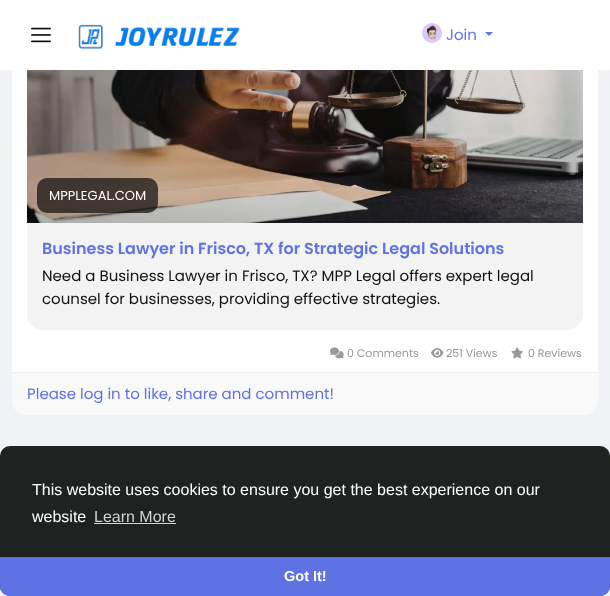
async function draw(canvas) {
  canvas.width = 610;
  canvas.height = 596;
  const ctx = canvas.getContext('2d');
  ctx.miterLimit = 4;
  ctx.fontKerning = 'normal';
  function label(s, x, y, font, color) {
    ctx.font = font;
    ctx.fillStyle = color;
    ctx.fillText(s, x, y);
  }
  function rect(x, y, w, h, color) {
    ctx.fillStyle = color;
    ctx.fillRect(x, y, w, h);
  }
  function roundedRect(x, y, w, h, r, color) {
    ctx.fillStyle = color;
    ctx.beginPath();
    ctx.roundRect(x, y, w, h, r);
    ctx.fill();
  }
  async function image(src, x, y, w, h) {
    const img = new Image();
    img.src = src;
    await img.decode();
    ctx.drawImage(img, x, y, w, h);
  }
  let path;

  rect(0, 0, 610, 596, '#f0f2f5');
  roundedRect(12, -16, 586, 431, 16, '#fff');
  roundedRect(27, -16, 556, 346, 16, '#f3f3f3');
  rect(0, 0, 610, 70, '#fff');
  await image('assets/img1.png', 31, 27, 20, 16);
  await image('assets/img2.png', 78, 24, 162, 26);
  await image('assets/img3.png', 422, 23, 20, 20);
  label('Join', 446, 40, '15px Poppins', '#5e72e4');
  path = new Path2D('M485 32H493L489 36Z');
  ctx.fill(path);
  await image('assets/img4.png', 27, 70, 556, 153);
  roundedRect(37, 178, 121, 35, 10, '#000000a6');
  label('MPPLEGAL.COM', 49, 200, '13px Poppins', '#fff');
  label('Business Lawyer in Frisco, TX for Strategic Legal Solutions', 42, 254, '600 16px Poppins', '#5e72e4');
  label('Need a Business Lawyer in Frisco, TX? MPP Legal offers expert legal', 42, 281, '15px Poppins', '#111');
  label('counsel for businesses, providing effective strategies.', 42, 304, '15px Poppins', '#111');
  await image('assets/img5.png', 330, 347, 14, 12);
  label('0 Comments', 347, 357, '11px Poppins', '#999');
  await image('assets/img6.png', 431, 348, 13, 10);
  label('251 Views', 446, 357, '11px Poppins', '#999');
  await image('assets/img7.png', 511, 347, 12, 12);
  label('0 Reviews', 528, 357, '11px Poppins', '#999');
  ctx.fillStyle = '#f9f9f9';
  ctx.beginPath();
  ctx.roundRect(12, 372, 586, 43, [0, 0, 14, 14]);
  ctx.fill();
  rect(12, 372, 586, 1, '#eee');
  label('Please log in to like, share and comment!', 27, 399, '15px Poppins', '#5e72e4');
  roundedRect(0, 446, 610, 150, 10, '#1e2321');
  label('This website uses cookies to ensure you get the best experience on our', 32, 495, '16px Liberation Sans', '#fff');
  label('website', 32, 522, '16px Liberation Sans', '#fff');
  label('Learn More', 94, 522, '16px Liberation Sans', '#d2d3d3');
  rect(94, 523, 82, 1, '#d2d3d3');
  ctx.fillStyle = '#5e72e4';
  ctx.beginPath();
  ctx.roundRect(0, 557, 610, 39, [0, 0, 10, 10]);
  ctx.fill();
  label('Got It!', 284, 581, 'bold 14.5px Liberation Sans', '#fff');
}

draw(document.querySelector('canvas'));
